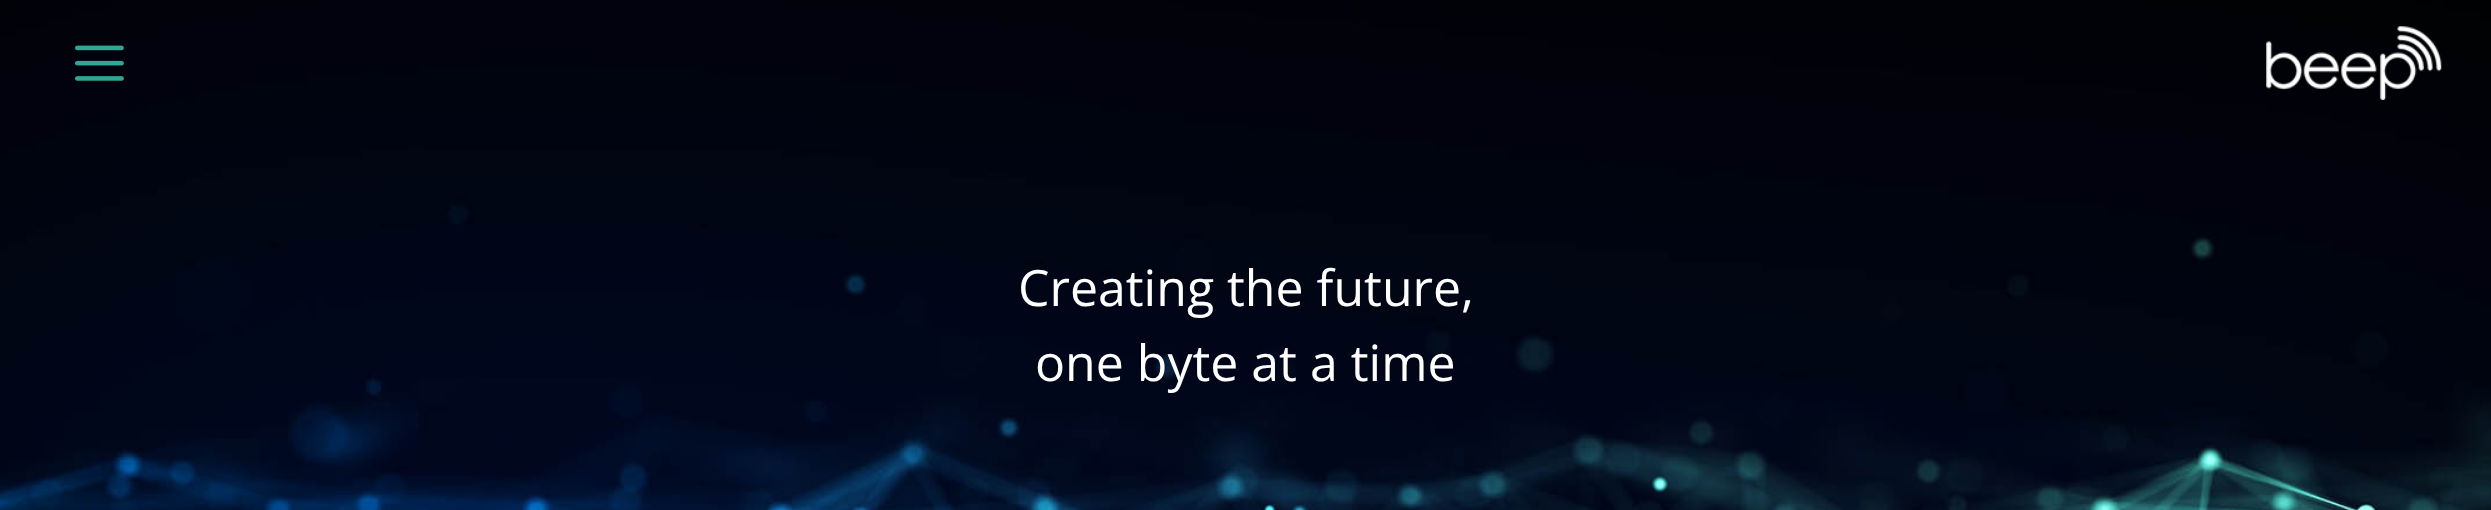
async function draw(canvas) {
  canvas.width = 2491;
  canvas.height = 510;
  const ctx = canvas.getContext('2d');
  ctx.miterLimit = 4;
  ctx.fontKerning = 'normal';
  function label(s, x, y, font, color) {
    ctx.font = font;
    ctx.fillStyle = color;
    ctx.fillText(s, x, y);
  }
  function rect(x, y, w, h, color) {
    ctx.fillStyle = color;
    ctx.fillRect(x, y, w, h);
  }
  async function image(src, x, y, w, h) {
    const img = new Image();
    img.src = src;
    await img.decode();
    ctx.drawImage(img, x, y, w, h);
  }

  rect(0, 0, 2491, 510, '#fff');
  await image('assets/img3.png', 0, 0, 2491, 510);
  await image('assets/img1.png', 75, 45, 49, 36);
  await image('assets/img2.png', 2266, 26, 176, 74);
  label('Creating the future,', 1018, 306, '50px Open Sans', '#fff');
  label('one byte at a time', 1035, 381, '50px Open Sans', '#fff');
}

draw(document.querySelector('canvas'));
